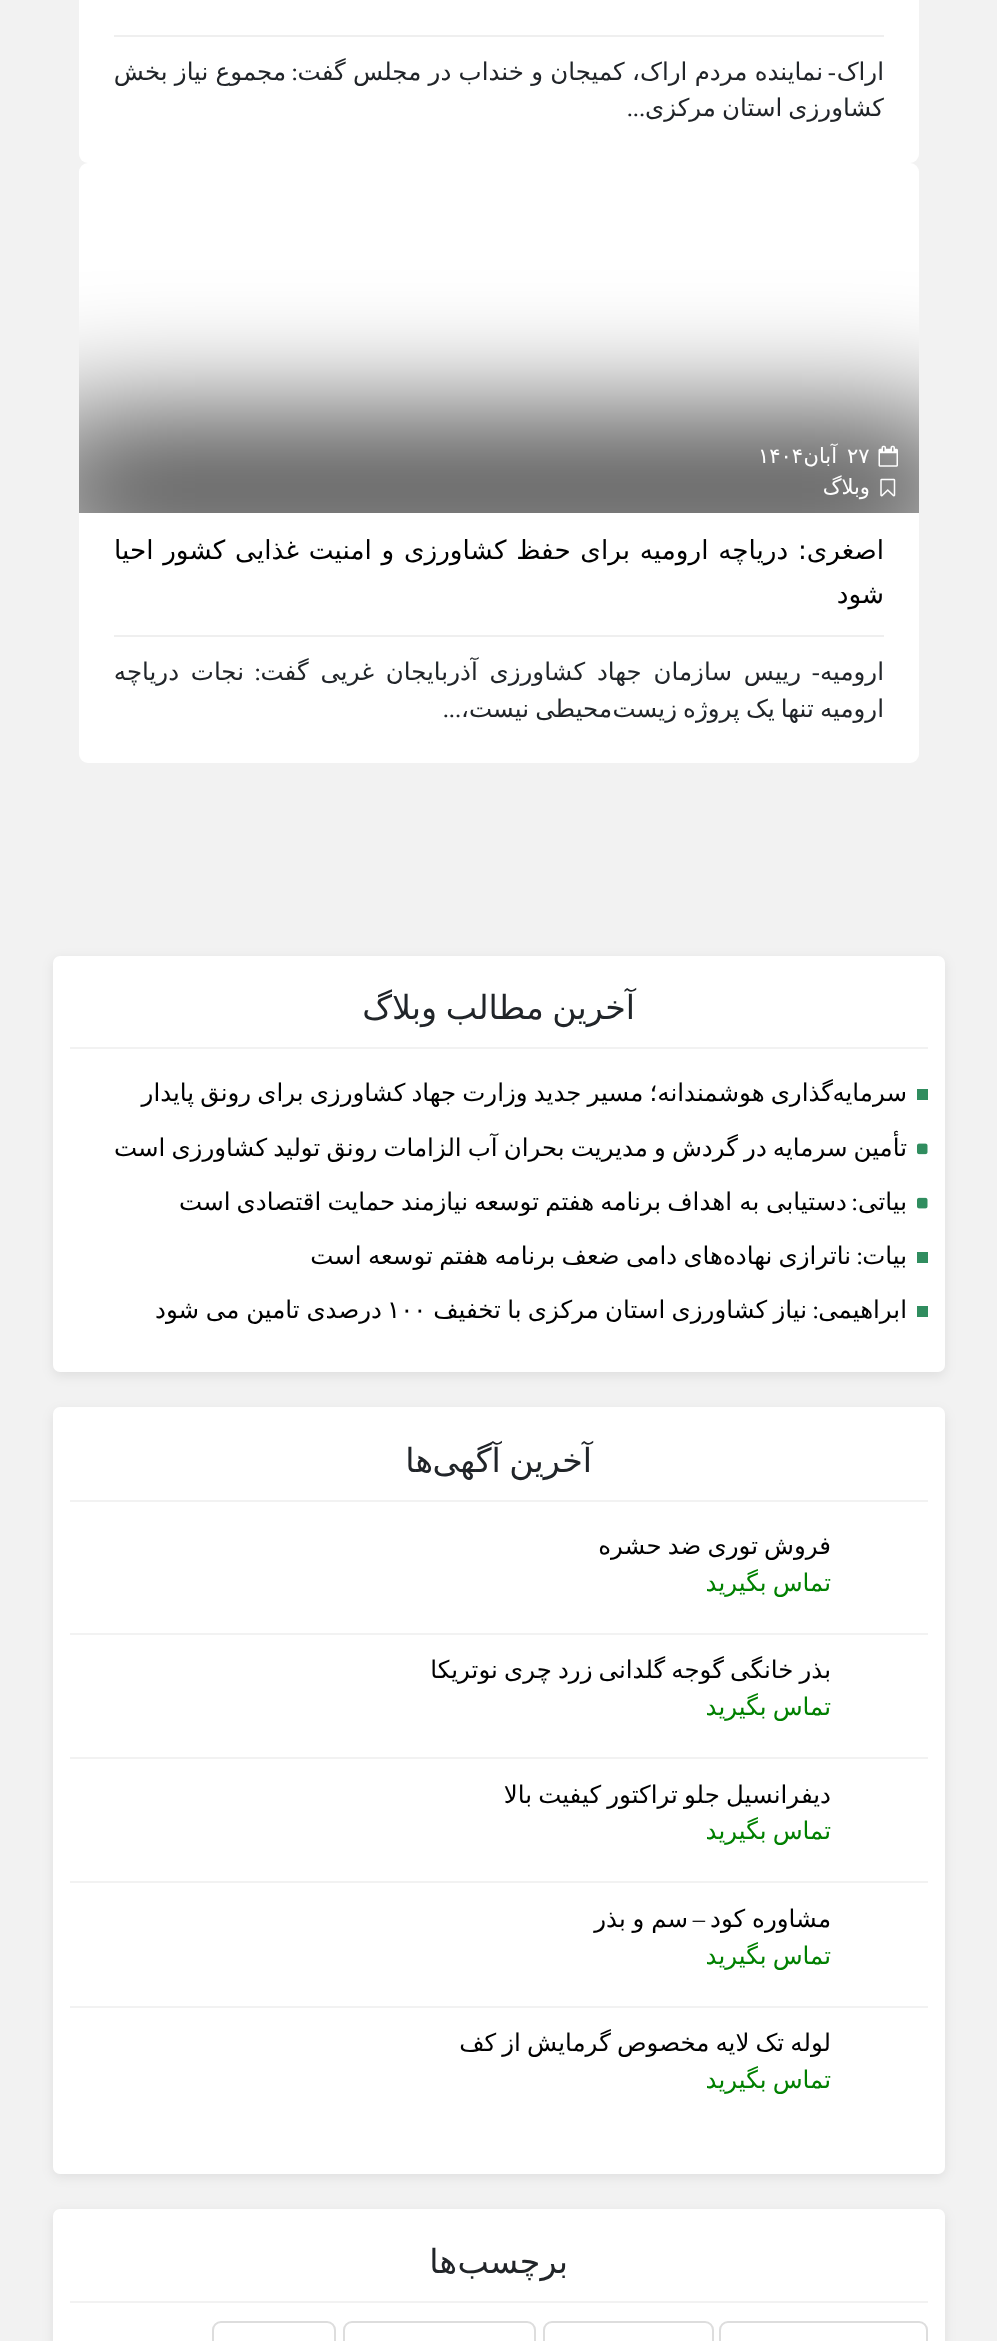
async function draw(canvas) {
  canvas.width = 997;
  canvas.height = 2341;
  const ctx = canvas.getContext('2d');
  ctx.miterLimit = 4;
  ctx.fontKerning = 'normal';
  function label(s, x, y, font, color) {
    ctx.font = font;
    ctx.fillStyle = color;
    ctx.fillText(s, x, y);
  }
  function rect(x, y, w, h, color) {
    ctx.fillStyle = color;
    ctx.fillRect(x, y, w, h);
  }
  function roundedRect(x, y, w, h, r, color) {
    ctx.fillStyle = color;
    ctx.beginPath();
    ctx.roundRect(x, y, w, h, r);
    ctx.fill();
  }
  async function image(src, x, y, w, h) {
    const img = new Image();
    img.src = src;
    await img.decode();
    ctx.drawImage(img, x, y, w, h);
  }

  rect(0, 0, 997, 2341, '#f2f2f2');
  roundedRect(79, -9, 840, 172, 9, '#fff');
  rect(114, 35, 770, 2, '#efefef');
  ctx.direction = 'rtl';
  label('اراک', 884, 80, '24.5px DejaVu Sans', '#212529');
  label('-', 836, 80, '24.5px Liberation Serif', '#212529');
  ctx.wordSpacing = '-0.5px';
  label('نماینده مردم اراک، کمیجان و خنداب در مجلس گفت', 823, 80, '24.5px DejaVu Sans', '#212529');
  ctx.wordSpacing = '0px';
  label(':', 298, 80, '24.5px Liberation Serif', '#212529');
  ctx.wordSpacing = '-0.5px';
  label('مجموع نیاز بخش', 286, 80, '24.5px DejaVu Sans', '#212529');
  ctx.wordSpacing = '-1.7px';
  label('کشاورزی استان مرکزی', 884, 116, '24.5px DejaVu Sans', '#212529');
  ctx.wordSpacing = '0px';
  label('...', 645, 116, '24.5px Liberation Serif', '#212529');
  roundedRect(79, 163, 840, 600, 9, '#fff');
  rect(114, 635, 770, 2, '#efefef');
  ctx.save();
  ctx.beginPath();
  ctx.rect(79, 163, 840, 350);
  ctx.clip();
  ctx.fillStyle = '#000';
  ctx.filter = 'blur(70px)';
  ctx.beginPath();
  ctx.rect(26, 438, 945, 105);
  ctx.fill();
  ctx.filter = 'none';
  ctx.restore();
  await image('assets/img1.png', 878, 445, 20, 22);
  ctx.direction = 'ltr';
  label('۲۷', 847, 463, '21px DejaVu Sans', '#fff');
  ctx.direction = 'rtl';
  label('آبان', 837, 463, '21px DejaVu Sans', '#fff');
  ctx.direction = 'ltr';
  label('۱۴۰۴', 758, 463, '21px DejaVu Sans', '#fff');
  await image('assets/img2.png', 880, 478, 16, 19);
  ctx.direction = 'rtl';
  label('وبلاگ', 870, 494, '21px DejaVu Sans', '#fff');
  ctx.wordSpacing = '1.4px';
  label('اصغری: دریاچه ارومیه برای حفظ کشاورزی و امنیت غذایی کشور احیا', 884, 559, '26.25px DejaVu Sans', '#000');
  ctx.wordSpacing = '0px';
  label('شود', 884, 603, '26.25px DejaVu Sans', '#000');
  label('ارومیه', 884, 680, '24.5px DejaVu Sans', '#212529');
  label('-', 820, 680, '24.5px Liberation Serif', '#212529');
  ctx.wordSpacing = '4px';
  label('رییس سازمان جهاد کشاورزی آذربایجان غریی گفت', 801, 680, '24.5px DejaVu Sans', '#212529');
  ctx.wordSpacing = '0px';
  label(':', 261, 680, '24.5px Liberation Serif', '#212529');
  ctx.wordSpacing = '4px';
  label('نجات دریاچه', 244, 680, '24.5px DejaVu Sans', '#212529');
  ctx.wordSpacing = '-1.7px';
  label('ارومیه تنها یک پروژه زیست', 884, 717, '24.5px DejaVu Sans', '#212529');
  label('محیطی نیست،', 612, 717, '24.5px DejaVu Sans', '#212529');
  ctx.wordSpacing = '0px';
  label('...', 461, 717, '24.5px Liberation Serif', '#212529');
  ctx.fillStyle = '#00000014';
  ctx.filter = 'blur(6px)';
  ctx.beginPath();
  ctx.roundRect(53, 959, 892, 417, 7);
  ctx.fill();
  ctx.filter = 'none';
  roundedRect(53, 956, 892, 416, 7, '#fff');
  rect(70, 1047, 858, 2, '#f2f2f2');
  ctx.wordSpacing = '-2px';
  label('آخرین مطالب وبلاگ', 635, 1019, '33.25px DejaVu Sans', '#212529');
  rect(917, 1089, 11, 11, '#308d5f');
  ctx.wordSpacing = '-1.7px';
  label('گذاری هوشمندانه؛ مسیر جدید وزارت جهاد کشاورزی برای رونق پایدار', 833, 1101, '24.5px DejaVu Sans', '#000');
  ctx.wordSpacing = '0px';
  label('سرمایه', 907, 1101, '24.5px DejaVu Sans', '#000');
  ctx.wordSpacing = '-1.7px';
  label('تأمین سرمایه در گردش و مدیریت بحران آب الزامات رونق تولید کشاورزی است', 907, 1156, '24.5px DejaVu Sans', '#000');
  await image('assets/img3.png', 917, 1143, 11, 12);
  await image('assets/img4.png', 917, 1197, 11, 12);
  ctx.wordSpacing = '0px';
  label('بیاتی', 907, 1210, '24.5px DejaVu Sans', '#000');
  label(':', 858, 1210, '24.5px Liberation Serif', '#000');
  ctx.wordSpacing = '-1px';
  label('دستیابی به', 847, 1210, '24.5px DejaVu Sans', '#000');
  ctx.wordSpacing = '-1.7px';
  label('اهداف برنامه هفتم توسعه نیازمند حمایت اقتصادی است', 732, 1210, '24.5px DejaVu Sans', '#000');
  rect(917, 1252, 11, 11, '#308d5f');
  ctx.wordSpacing = '0px';
  label('بیات', 907, 1264, '24.5px DejaVu Sans', '#000');
  label(':', 863, 1264, '24.5px Liberation Serif', '#000');
  ctx.wordSpacing = '-1.5px';
  label('های دامی ضعف برنامه هفتم توسعه است', 723, 1264, '24.5px DejaVu Sans', '#000');
  label('ناترازی نهاده', 851, 1264, '24.5px DejaVu Sans', '#000');
  rect(917, 1306, 11, 11, '#308d5f');
  ctx.wordSpacing = '0px';
  label('ابراهیمی', 907, 1318, '24.5px DejaVu Sans', '#000');
  label(':', 819, 1318, '24.5px Liberation Serif', '#000');
  ctx.wordSpacing = '-1.5px';
  label('نیاز کشاورزی استان مرکزی با تخفیف', 807, 1318, '24.5px DejaVu Sans', '#000');
  ctx.wordSpacing = '0px';
  ctx.direction = 'ltr';
  label('۱۰۰', 387, 1318, '24.5px DejaVu Sans', '#000');
  ctx.wordSpacing = '-1px';
  ctx.direction = 'rtl';
  label('درصدی تامین می شود', 382, 1318, '24.5px DejaVu Sans', '#000');
  ctx.fillStyle = '#00000014';
  ctx.filter = 'blur(6px)';
  ctx.beginPath();
  ctx.roundRect(53, 1411, 892, 766, 7);
  ctx.fill();
  ctx.filter = 'none';
  roundedRect(53, 1407, 892, 767, 7, '#fff');
  rect(70, 1500, 858, 2, '#f2f2f2');
  ctx.wordSpacing = '-2px';
  label('آخرین آگهی', 592, 1472, '33.25px DejaVu Sans', '#212529');
  ctx.wordSpacing = '0px';
  label('ها', 433, 1472, '33.25px DejaVu Sans', '#212529');
  rect(70, 1633, 858, 2, '#f2f2f2');
  ctx.wordSpacing = '-1.7px';
  label('فروش توری ضد حشره', 831, 1554, '24.5px DejaVu Sans', '#000');
  label('تماس بگیرید', 831, 1591, '24.5px DejaVu Sans', '#008000');
  rect(70, 1757, 858, 2, '#f2f2f2');
  label('بذر خانگی گوجه گلدانی زرد چری نوتریکا', 831, 1678, '24.5px DejaVu Sans', '#000');
  label('تماس بگیرید', 831, 1715, '24.5px DejaVu Sans', '#008000');
  rect(70, 1881, 858, 2, '#f2f2f2');
  label('دیفرانسیل جلو تراکتور کیفیت بالا', 831, 1803, '24.5px DejaVu Sans', '#000');
  label('تماس بگیرید', 831, 1839, '24.5px DejaVu Sans', '#008000');
  rect(70, 2006, 858, 2, '#f2f2f2');
  ctx.wordSpacing = '-1px';
  label('مشاوره کود', 831, 1927, '24.5px DejaVu Sans', '#000');
  ctx.wordSpacing = '0px';
  label('–', 705, 1927, '24.5px Liberation Serif', '#000');
  ctx.wordSpacing = '-1px';
  label('سم و بذر', 688, 1927, '24.5px DejaVu Sans', '#000');
  ctx.wordSpacing = '-1.7px';
  label('تماس بگیرید', 831, 1964, '24.5px DejaVu Sans', '#008000');
  label('لوله تک لایه مخصوص گرمایش از کف', 831, 2051, '24.5px DejaVu Sans', '#000');
  label('تماس بگیرید', 831, 2088, '24.5px DejaVu Sans', '#008000');
  ctx.fillStyle = '#00000014';
  ctx.filter = 'blur(6px)';
  ctx.beginPath();
  ctx.roundRect(53, 2212, 892, 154, 7);
  ctx.fill();
  ctx.filter = 'none';
  roundedRect(53, 2209, 892, 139, 7, '#fff');
  rect(70, 2301, 858, 2, '#f2f2f2');
  ctx.wordSpacing = '0px';
  label('برچسب', 568, 2273, '33.25px DejaVu Sans', '#212529');
  label('ها', 457, 2273, '33.25px DejaVu Sans', '#212529');
  ctx.beginPath();
  ctx.roundRect(720, 2322, 207, 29, 8);
  ctx.strokeStyle = '#ddd';
  ctx.lineWidth = 2;
  ctx.stroke();
  ctx.beginPath();
  ctx.roundRect(544, 2322, 169, 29, 8);
  ctx.stroke();
  ctx.beginPath();
  ctx.roundRect(344, 2322, 191, 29, 8);
  ctx.stroke();
  ctx.beginPath();
  ctx.roundRect(213, 2322, 122, 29, 8);
  ctx.stroke();
}

draw(document.querySelector('canvas'));
